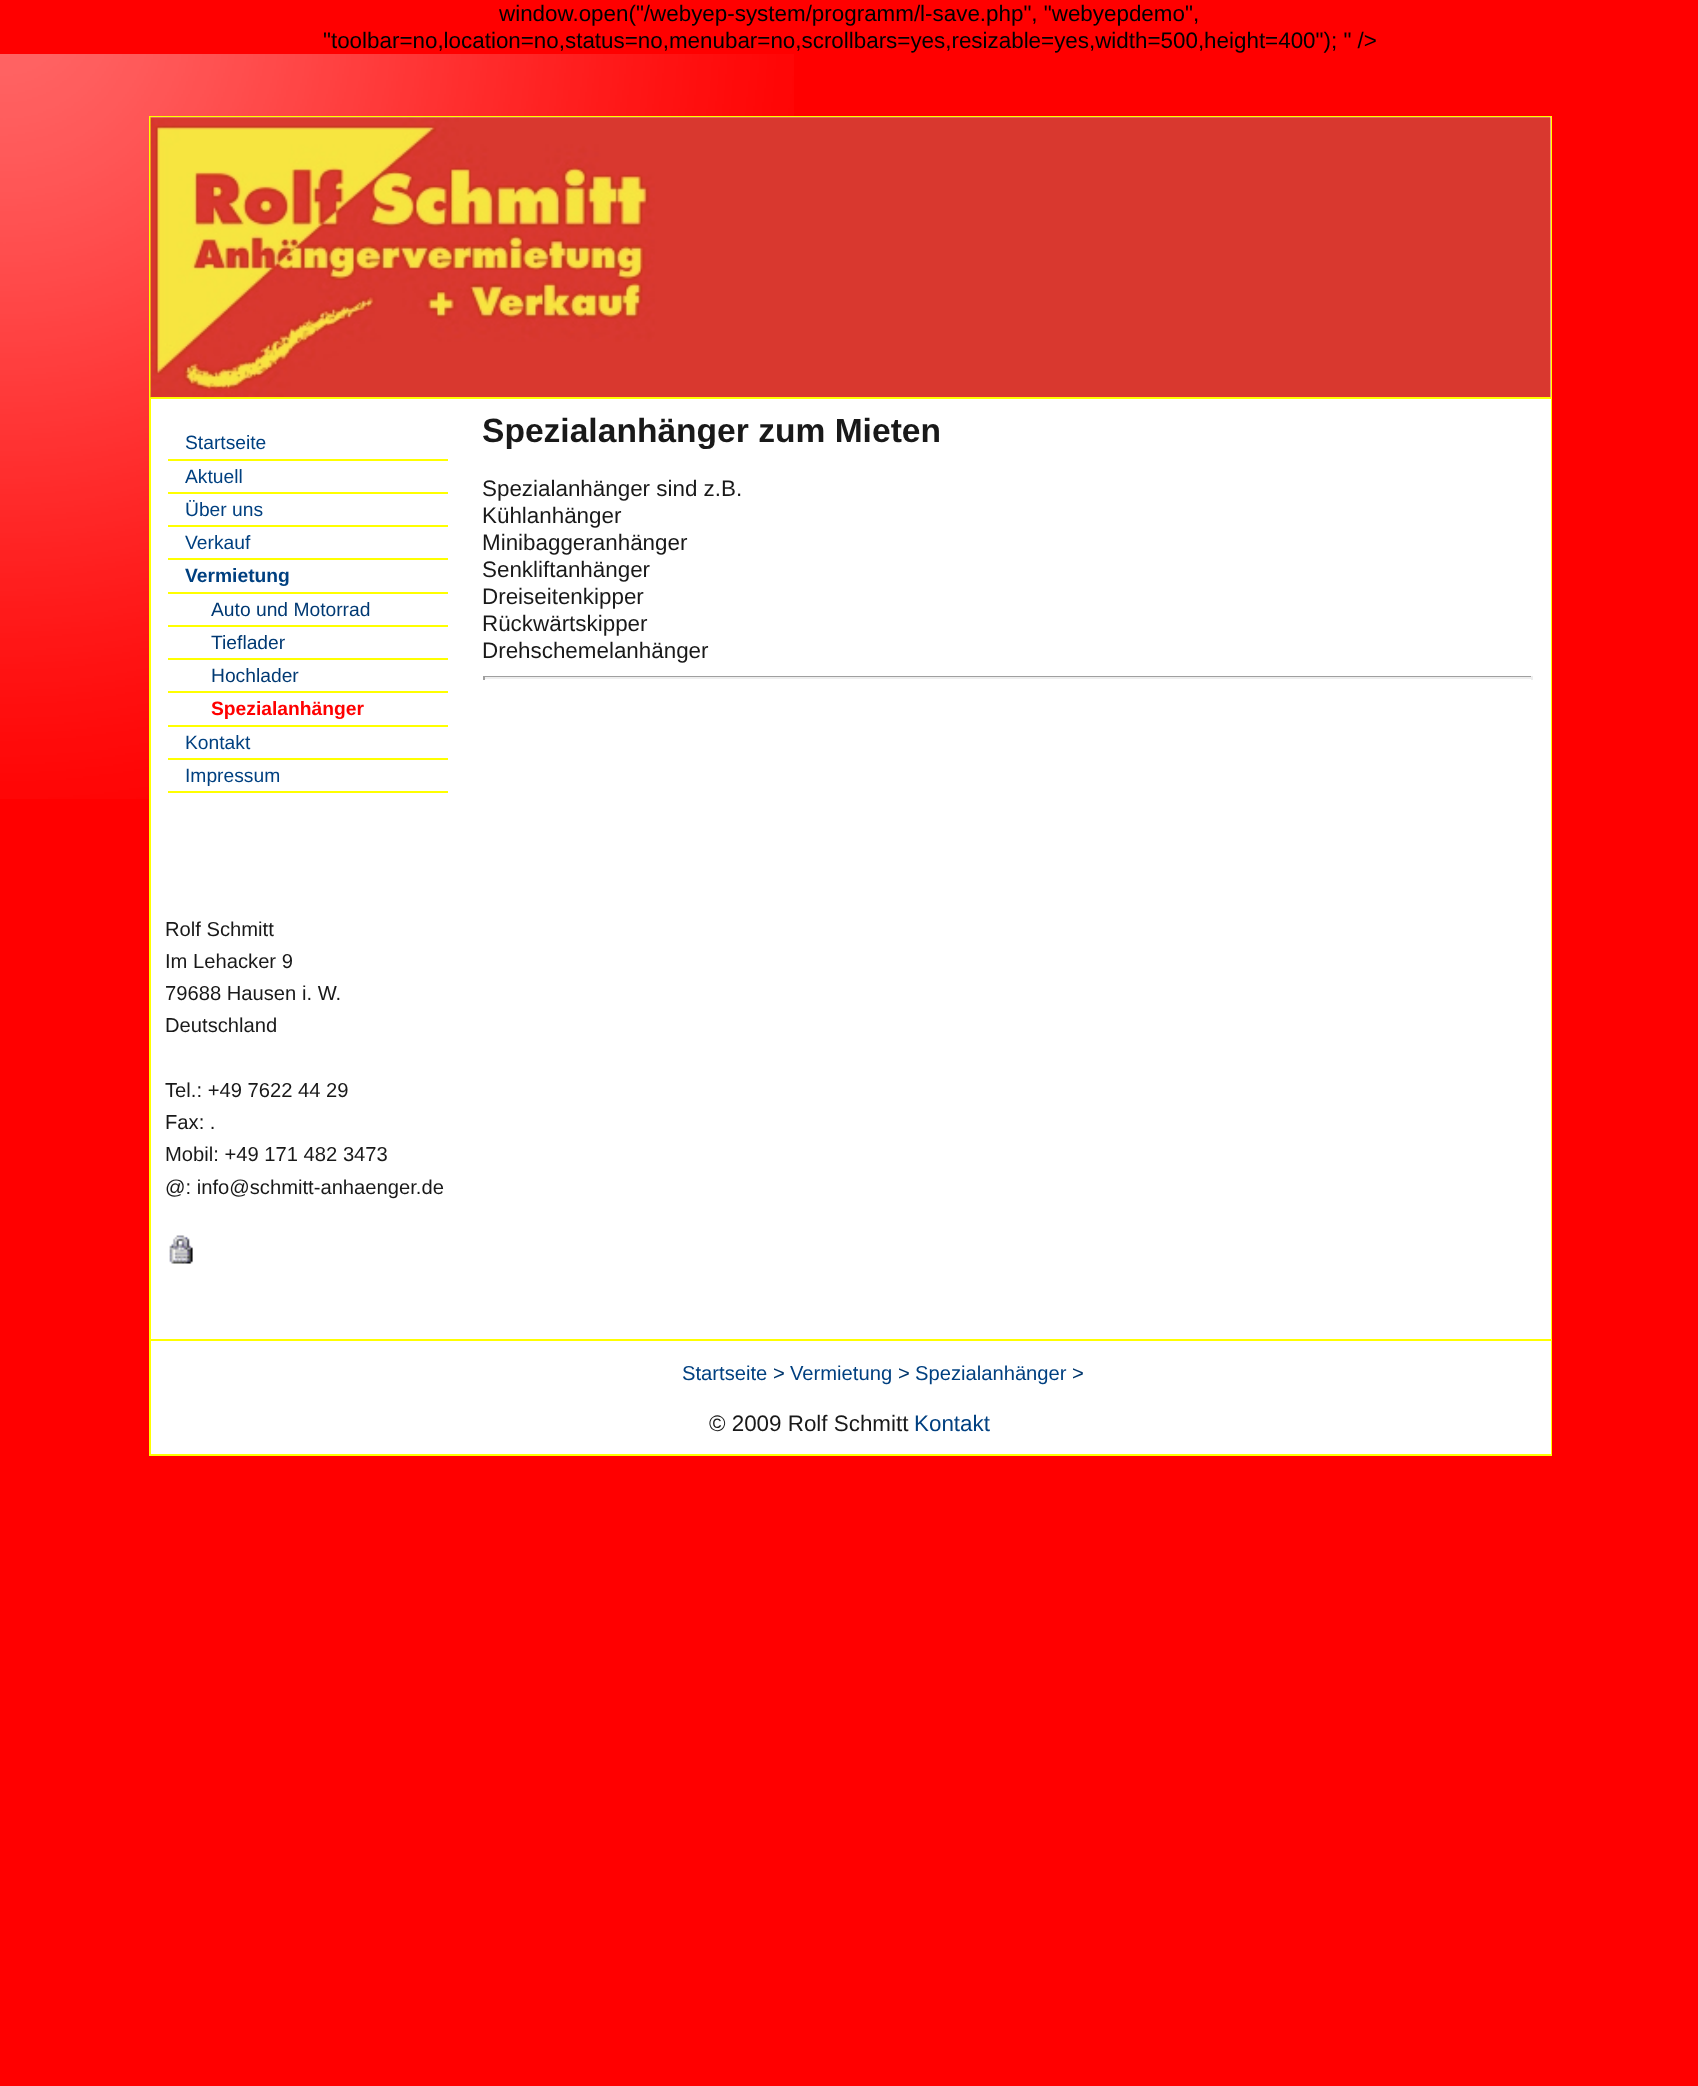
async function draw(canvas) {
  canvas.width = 1698;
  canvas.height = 2086;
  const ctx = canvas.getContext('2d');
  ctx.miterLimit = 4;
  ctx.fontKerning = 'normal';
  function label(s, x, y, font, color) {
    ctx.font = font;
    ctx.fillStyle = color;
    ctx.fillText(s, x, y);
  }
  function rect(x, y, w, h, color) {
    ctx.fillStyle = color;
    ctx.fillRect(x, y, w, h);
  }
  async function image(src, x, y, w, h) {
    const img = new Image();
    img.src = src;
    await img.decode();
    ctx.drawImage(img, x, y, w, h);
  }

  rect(0, 0, 1698, 2086, '#f00');
  label('window.open("/webyep-system/programm/l-save.php", "webyepdemo",', 499, 21, '22.4px Liberation Sans', '#000');
  label('"toolbar=no,location=no,status=no,menubar=no,scrollbars=yes,resizable=yes,width=500,height=400"); " />', 323, 48, '22.4px Liberation Sans', '#000');
  await image('assets/img1.png', 0, 54, 794, 745);
  ctx.strokeStyle = '#ff0';
  ctx.lineWidth = 2;
  ctx.strokeRect(150, 117, 1401, 1338);
  rect(151, 117, 1400, 1337, '#fff');
  await image('assets/img2.png', 150, 117, 1401, 281);
  rect(151, 397, 1400, 2, '#ff0');
  rect(168, 459, 280, 2, '#ff0');
  label('Startseite', 185, 449, '19.25px Liberation Sans', '#004080');
  rect(168, 492, 280, 2, '#ff0');
  label('Aktuell', 185, 483, '19.25px Liberation Sans', '#004080');
  rect(168, 525, 280, 2, '#ff0');
  label('Über uns', 185, 516, '19.25px Liberation Sans', '#004080');
  rect(168, 558, 280, 2, '#ff0');
  label('Verkauf', 185, 549, '19.25px Liberation Sans', '#004080');
  rect(168, 592, 280, 2, '#ff0');
  label('Vermietung', 185, 582, 'bold 19.25px Liberation Sans', '#004080');
  rect(168, 625, 280, 2, '#ff0');
  label('Auto und Motorrad', 211, 616, '19.25px Liberation Sans', '#003973');
  rect(168, 658, 280, 2, '#ff0');
  label('Tieflader', 211, 649, '19.25px Liberation Sans', '#003973');
  rect(168, 691, 280, 2, '#ff0');
  label('Hochlader', 211, 682, '19.25px Liberation Sans', '#003973');
  rect(168, 725, 280, 2, '#ff0');
  label('Spezialanhänger', 211, 715, 'bold 19.25px Liberation Sans', '#f00');
  rect(168, 758, 280, 2, '#ff0');
  label('Kontakt', 185, 749, '19.25px Liberation Sans', '#004080');
  rect(168, 791, 280, 2, '#ff0');
  label('Impressum', 185, 782, '19.25px Liberation Sans', '#004080');
  label('Rolf Schmitt', 165, 936, '20.2px Liberation Sans', '#191919');
  label('Im Lehacker 9', 165, 968, '20.2px Liberation Sans', '#191919');
  label('79688 Hausen i. W.', 165, 1000, '20.2px Liberation Sans', '#191919');
  label('Deutschland', 165, 1032, '20.2px Liberation Sans', '#191919');
  label('Tel.: +49 7622 44 29', 165, 1097, '20.2px Liberation Sans', '#191919');
  label('Fax: .', 165, 1129, '20.2px Liberation Sans', '#191919');
  label('Mobil: +49 171 482 3473', 165, 1161, '20.2px Liberation Sans', '#191919');
  label('@: info@schmitt-anhaenger.de', 165, 1194, '20.2px Liberation Sans', '#191919');
  await image('assets/img3.png', 169, 1235, 24, 29);
  label('Spezialanhänger zum Mieten', 482, 442, 'bold 33.6px Liberation Sans', '#191919');
  label('Spezialanhänger sind z.B.', 482, 496, '22.4px Liberation Sans', '#191919');
  label('Kühlanhänger', 482, 523, '22.4px Liberation Sans', '#191919');
  label('Minibaggeranhänger', 482, 550, '22.4px Liberation Sans', '#191919');
  label('Senkliftanhänger', 482, 577, '22.4px Liberation Sans', '#191919');
  label('Dreiseitenkipper', 482, 604, '22.4px Liberation Sans', '#191919');
  label('Rückwärtskipper', 482, 631, '22.4px Liberation Sans', '#191919');
  label('Drehschemelanhänger', 482, 658, '22.4px Liberation Sans', '#191919');
  rect(483, 676, 1050, 1, '#9f9f9f');
  rect(1531, 676, 2, 4, '#eee');
  rect(483, 677, 1050, 2, '#eee');
  rect(483, 676, 2, 4, '#9f9f9f');
  rect(151, 1339, 1400, 2, '#ff0');
  label('Startseite', 682, 1380, '20.2px Liberation Sans', '#004080');
  label('>', 773, 1380, '20.2px Liberation Sans', '#00366c');
  label('Vermietung', 790, 1380, '20.2px Liberation Sans', '#004080');
  label('>', 898, 1380, '20.2px Liberation Sans', '#00366c');
  label('Spezialanhänger', 915, 1380, '20.2px Liberation Sans', '#004080');
  label('>', 1072, 1380, '20.2px Liberation Sans', '#00366c');
  label('© 2009 Rolf Schmitt', 709, 1431, '22.4px Liberation Sans', '#191919');
  label('Kontakt', 914, 1431, '22.4px Liberation Sans', '#004080');
}

draw(document.querySelector('canvas'));
